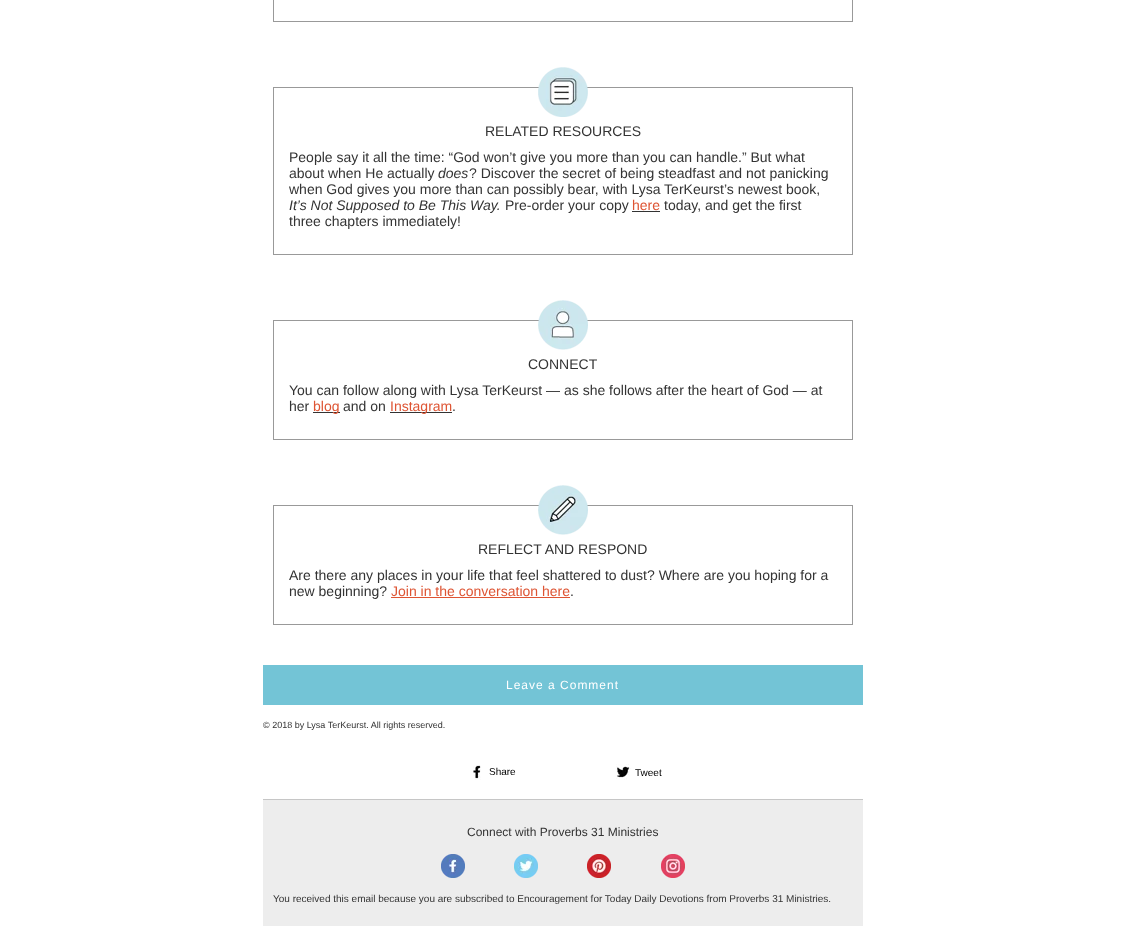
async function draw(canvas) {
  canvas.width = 1126;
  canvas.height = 926;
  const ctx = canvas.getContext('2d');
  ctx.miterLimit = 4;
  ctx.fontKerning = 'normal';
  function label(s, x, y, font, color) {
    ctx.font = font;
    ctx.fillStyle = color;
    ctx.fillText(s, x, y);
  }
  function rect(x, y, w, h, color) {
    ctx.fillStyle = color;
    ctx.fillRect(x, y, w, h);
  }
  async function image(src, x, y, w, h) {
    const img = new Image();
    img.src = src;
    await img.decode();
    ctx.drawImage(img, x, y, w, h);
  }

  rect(0, 0, 1126, 926, '#fff');
  ctx.strokeStyle = '#999';
  ctx.strokeRect(273.5, -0.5, 579, 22);
  ctx.strokeRect(273.5, 87.5, 579, 167);
  await image('assets/img1.png', 538, 67, 50, 50);
  label('RELATED RESOURCES', 485, 136, '14px Liberation Sans', '#333');
  label('People say it all the time: “God won’t give you more than you can handle.” But what', 289, 162, '14px Liberation Sans', '#333');
  label('about when He actually', 289, 178, '14px Liberation Sans', '#333');
  label('does', 438, 178, 'italic 14px Liberation Sans', '#333');
  label('? Discover the secret of being steadfast and not panicking', 469, 178, '14px Liberation Sans', '#333');
  label('when God gives you more than can possibly bear, with Lysa TerKeurst’s newest book,', 289, 194, '14px Liberation Sans', '#333');
  label('It’s Not Supposed to Be This Way.', 289, 210, 'italic 14px Liberation Sans', '#333');
  label('Pre-order your copy', 505, 210, '14px Liberation Sans', '#333');
  label('here', 632, 210, '14px Liberation Sans', '#de5433');
  rect(632, 211, 28, 1, '#333');
  label('today, and get the first', 664, 210, '14px Liberation Sans', '#333');
  label('three chapters immediately!', 289, 226, '14px Liberation Sans', '#333');
  ctx.strokeRect(273.5, 320.5, 579, 119);
  await image('assets/img2.png', 538, 300, 50, 50);
  label('CONNECT', 528, 369, '14px Liberation Sans', '#333');
  label('You can follow along with Lysa TerKeurst — as she follows after the heart of God — at', 289, 395, '14px Liberation Sans', '#333');
  label('her', 289, 411, '14px Liberation Sans', '#333');
  rect(313, 412, 27, 1, '#333');
  label('blog', 313, 411, '14px Liberation Sans', '#de5433');
  label('and on', 343, 411, '14px Liberation Sans', '#333');
  rect(390, 412, 62, 1, '#333');
  label('Instagram', 390, 411, '14px Liberation Sans', '#de5433');
  label('.', 452, 411, '14px Liberation Sans', '#333');
  ctx.strokeRect(273.5, 505.5, 579, 119);
  await image('assets/img3.png', 538, 485, 50, 50);
  label('REFLECT AND RESPOND', 478, 554, '14px Liberation Sans', '#333');
  label('Are there any places in your life that feel shattered to dust? Where are you hoping for a', 289, 580, '14px Liberation Sans', '#333');
  label('new beginning?', 289, 596, '14px Liberation Sans', '#333');
  label('Join in the conversation here', 391, 596, '14px Liberation Sans', '#de5433');
  rect(391, 597, 179, 1, '#de5433');
  label('.', 570, 596, '14px Liberation Sans', '#333');
  rect(263, 665, 600, 40, '#73c4d6');
  ctx.letterSpacing = '1px';
  label('Leave a Comment', 506, 689, '12px Liberation Sans', '#fff');
  ctx.letterSpacing = '0px';
  label('© 2018 by Lysa TerKeurst. All rights reserved.', 263, 728, '9px Liberation Sans', '#333');
  await image('assets/img4.png', 473, 765, 8, 15);
  label('Share', 489, 775, '10px Liberation Sans', '#000');
  await image('assets/img5.png', 616, 764, 15, 16);
  label('Tweet', 635, 776, '10px Liberation Sans', '#000');
  rect(263, 800, 600, 126, '#ededed');
  rect(263, 799, 600, 1, '#c6c6c6');
  label('Connect with Proverbs 31 Ministries', 467, 836, '12px Liberation Sans', '#333');
  await image('assets/img6.png', 441, 854, 24, 24);
  await image('assets/img7.png', 514, 854, 24, 24);
  await image('assets/img8.png', 587, 854, 24, 24);
  await image('assets/img9.png', 661, 854, 24, 24);
  label('You received this email because you are subscribed to Encouragement for Today Daily Devotions from Proverbs 31 Ministries.', 273, 902, '10px Liberation Sans', '#333');
}

draw(document.querySelector('canvas'));
